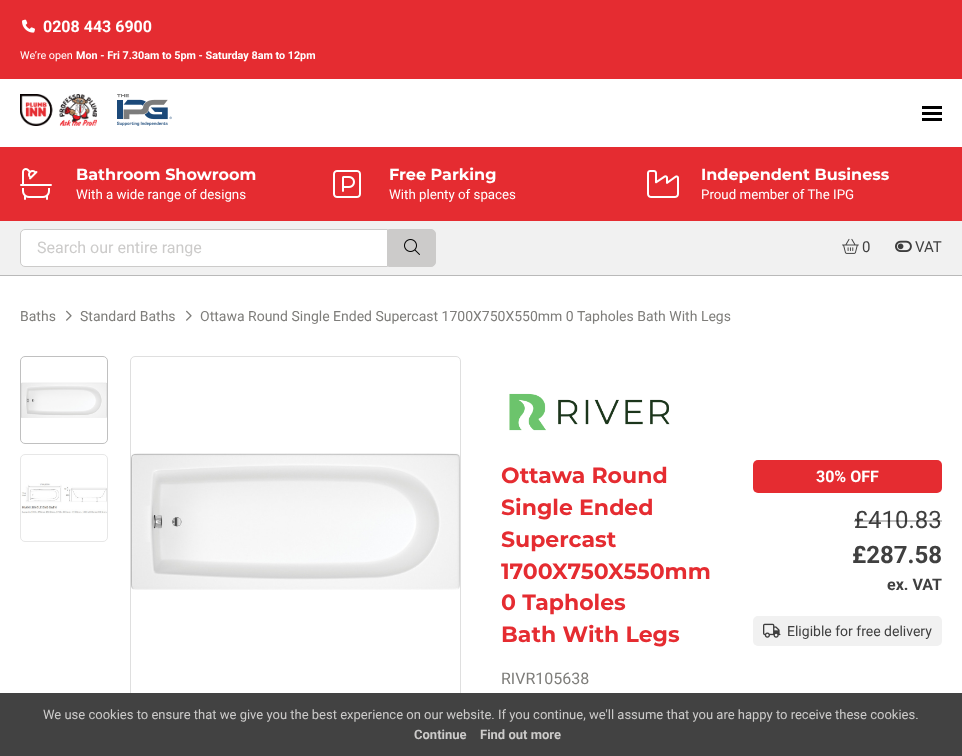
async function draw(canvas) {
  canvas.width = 962;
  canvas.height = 756;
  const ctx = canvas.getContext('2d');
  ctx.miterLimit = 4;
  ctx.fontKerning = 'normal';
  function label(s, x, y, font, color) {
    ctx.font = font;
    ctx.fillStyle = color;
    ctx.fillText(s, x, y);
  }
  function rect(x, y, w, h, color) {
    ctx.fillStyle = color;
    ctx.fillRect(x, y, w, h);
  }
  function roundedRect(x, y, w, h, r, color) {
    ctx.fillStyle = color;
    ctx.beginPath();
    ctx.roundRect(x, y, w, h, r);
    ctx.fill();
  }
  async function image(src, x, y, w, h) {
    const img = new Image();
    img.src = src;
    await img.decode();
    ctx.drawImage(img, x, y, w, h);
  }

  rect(0, 0, 962, 756, '#fff');
  rect(0, 0, 962, 79, '#e52c31');
  await image('assets/img1.png', 22, 19, 13, 14);
  label('0208 443 6900', 43, 32, 'bold 16px Roboto', '#fff');
  label('We’re open', 20, 59, '10.8px Roboto', '#fff');
  label('Mon - Fri 7.30am to 5pm - Saturday 8am to 12pm', 76, 59, 'bold 10.8px Roboto', '#fff');
  await image('assets/img2.png', 20, 94, 77, 32);
  await image('assets/img3.png', 117, 94, 55, 32);
  rect(922, 112, 20, 3, '#000');
  rect(922, 106, 20, 3, '#000');
  rect(922, 118, 20, 3, '#000');
  rect(0, 147, 962, 74, '#e52c31');
  await image('assets/img4.png', 20, 168, 32, 32);
  label('Bathroom Showroom', 76, 180, 'bold 16px Montserrat', '#fff');
  label('With a wide range of designs', 76, 199, '13.3px Roboto', '#fff');
  await image('assets/img5.png', 333, 170, 28, 28);
  label('Free Parking', 389, 180, 'bold 16px Montserrat', '#fff');
  label('With plenty of spaces', 389, 199, '13.3px Roboto', '#fff');
  await image('assets/img6.png', 647, 170, 32, 28);
  label('Independent Business', 701, 180, 'bold 16px Montserrat', '#fff');
  label('Proud member of The IPG', 701, 199, '13.3px Roboto', '#fff');
  rect(0, 221, 962, 54, '#f1f1f1');
  rect(0, 275, 962, 1, '#b9b9b9');
  ctx.fillStyle = '#fff';
  ctx.beginPath();
  ctx.roundRect(20.5, 229.5, 367, 37, [4.5, 0, 0, 4.5]);
  ctx.fill();
  ctx.strokeStyle = '#cccbca';
  ctx.stroke();
  label('Search our entire range', 37, 253, '16px Roboto', '#cccbca');
  ctx.beginPath();
  ctx.roundRect(388.5, 229.5, 47, 37, [0, 4.5, 4.5, 0]);
  ctx.fill();
  ctx.stroke();
  await image('assets/img7.png', 404, 239, 16, 16);
  await image('assets/img8.png', 842, 238, 17, 16);
  label('0', 862, 252, '15px Roboto', '#404040');
  await image('assets/img9.png', 895, 240, 17, 12);
  label('VAT', 915, 252, '15px Roboto', '#404040');
  label('Baths', 20, 321, '14px Roboto', '#7e7d7a');
  await image('assets/img10.png', 66, 310, 6, 11);
  label('Standard Baths', 80, 321, '14px Roboto', '#7e7d7a');
  await image('assets/img10.png', 186, 310, 6, 11);
  label('Ottawa Round Single Ended Supercast 1700X750X550mm 0 Tapholes Bath With Legs', 200, 321, '14px Roboto', '#7e7d7a');
  ctx.beginPath();
  ctx.roundRect(20.5, 356.5, 87, 87, 4.5);
  ctx.strokeStyle = '#c0c0c0';
  ctx.stroke();
  await image('assets/img11.png', 21, 382, 86, 36);
  ctx.beginPath();
  ctx.roundRect(20.5, 454.5, 87, 87, 4.5);
  ctx.strokeStyle = '#e7e7e7';
  ctx.stroke();
  await image('assets/img12.png', 21, 483, 86, 31);
  ctx.beginPath();
  ctx.roundRect(130.5, 356.5, 330, 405, 4.5);
  ctx.strokeStyle = '#dfdfdf';
  ctx.stroke();
  await image('assets/img13.png', 131, 453, 329, 137);
  await image('assets/img14.png', 509, 393, 161, 38);
  label('Ottawa Round', 501, 483, 'bold 22px Montserrat', '#e52c31');
  label('Single Ended', 501, 515, 'bold 22px Montserrat', '#e52c31');
  label('Supercast', 501, 547, 'bold 22px Montserrat', '#e52c31');
  label('1700X750X550mm', 501, 579, 'bold 22px Montserrat', '#e52c31');
  label('0 Tapholes', 501, 610, 'bold 22px Montserrat', '#e52c31');
  label('Bath With Legs', 501, 642, 'bold 22px Montserrat', '#e52c31');
  label('RIVR105638', 501, 684, '16px Roboto', '#7e7d7a');
  roundedRect(753, 460, 189, 33, 5, '#e52c31');
  label('30% OFF', 816, 482, 'bold 16px Roboto', '#fff');
  label('£410.83', 854, 528, '24px Roboto', '#404040');
  rect(854, 520, 14, 2, '#00000040');
  rect(868, 520, 74, 2, '#00000040');
  label('£287.58', 852, 563, 'bold 24px Roboto', '#404040');
  label('ex. VAT', 887, 590, 'bold 16px Roboto', '#404040');
  roundedRect(753, 616, 189, 30, 5, '#f1f1f1');
  await image('assets/img15.png', 763, 623, 18, 15);
  label('Eligible for free delivery', 787, 636, '14px Roboto', '#404040');
  rect(0, 693, 962, 63, '#424242');
  label('We use cookies to ensure that we give you the best experience on our website. If you continue, we\'ll assume that you are happy to receive these cookies.', 43, 719, '13px Roboto', '#cccbca');
  label('Continue', 414, 739, 'bold 13px Roboto', '#cccbca');
  label('Find out more', 480, 739, 'bold 13px Roboto', '#cccbca');
}

draw(document.querySelector('canvas'));
